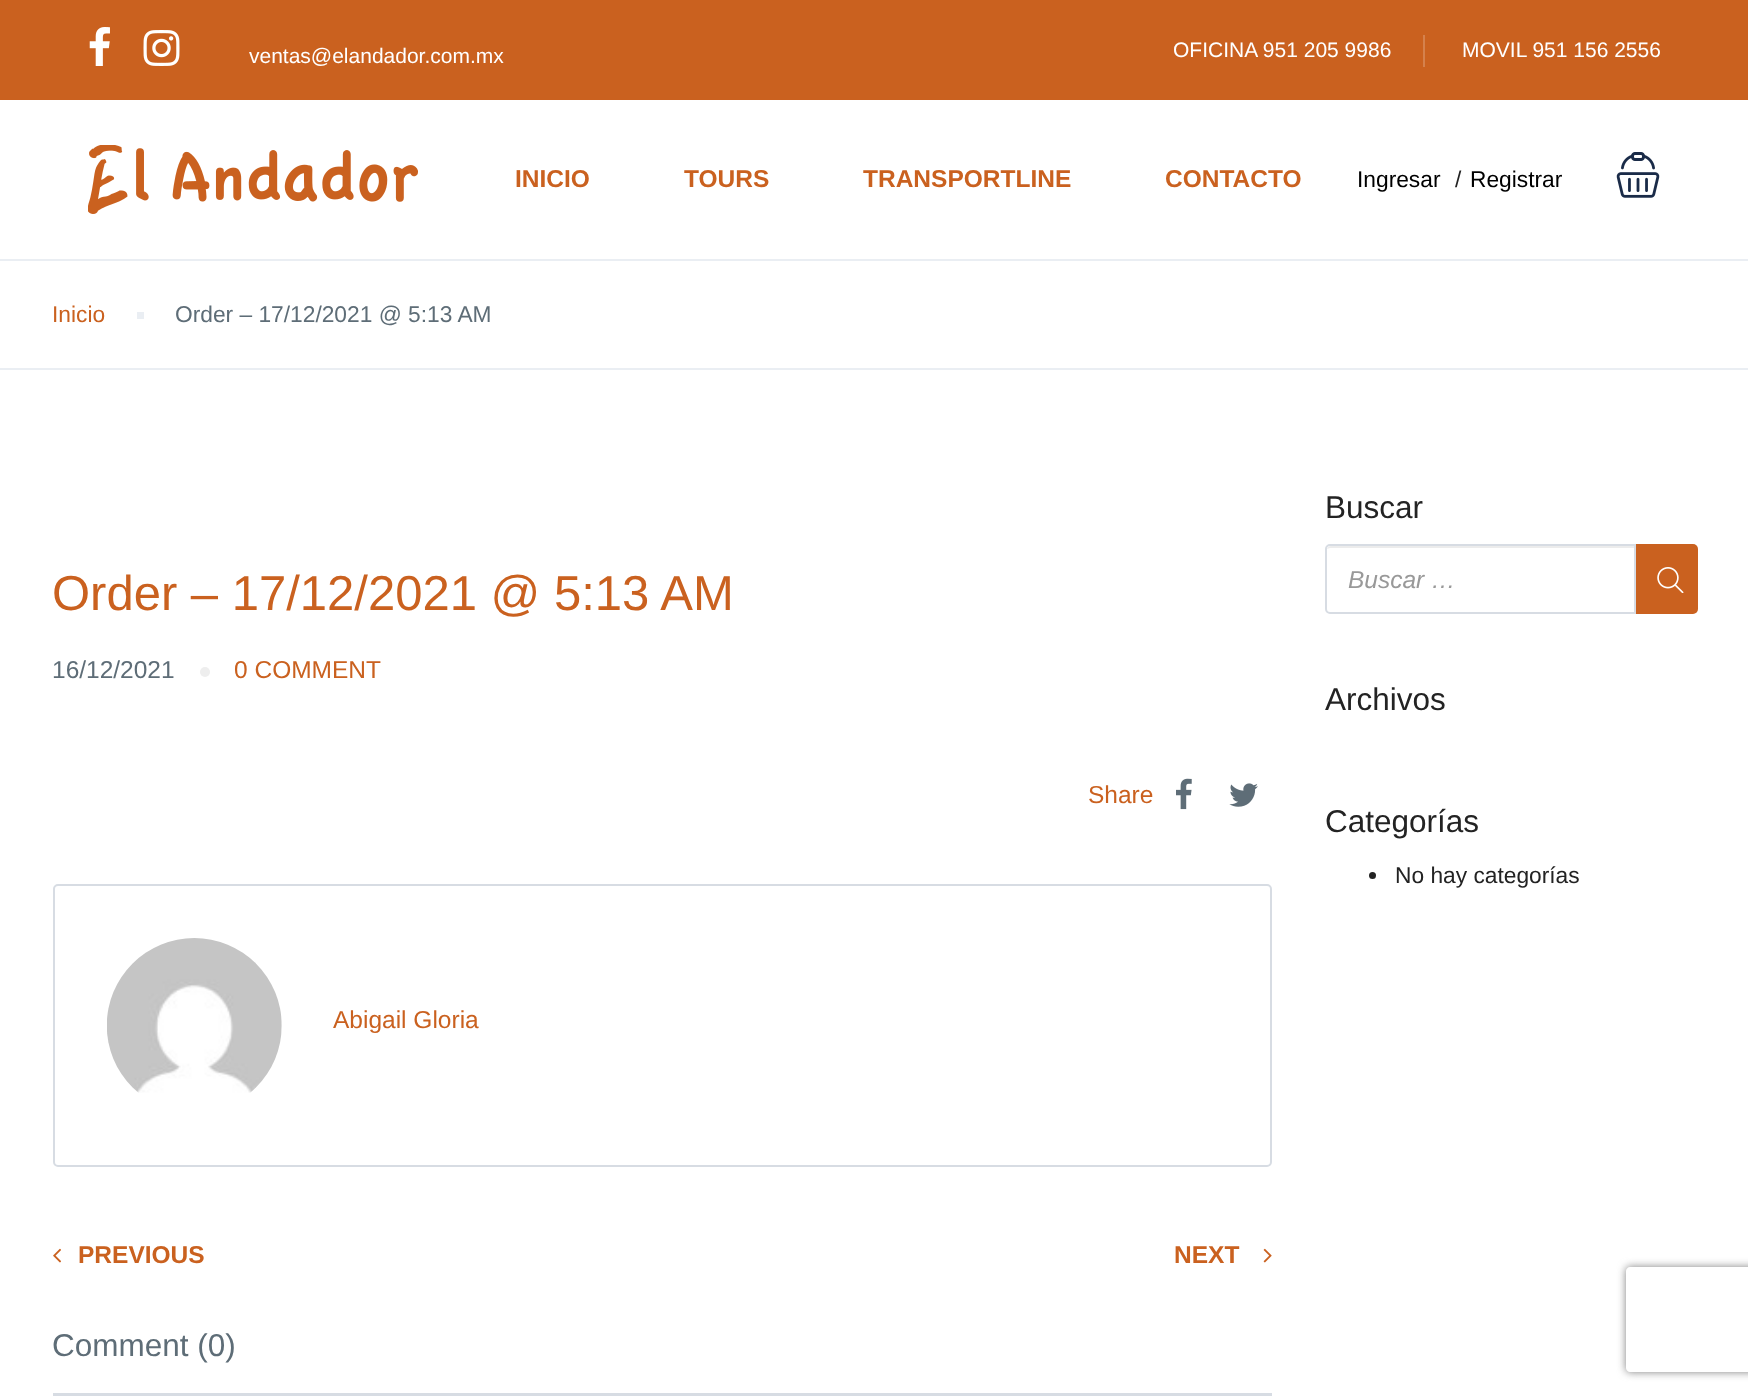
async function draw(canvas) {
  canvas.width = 1748;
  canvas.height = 1396;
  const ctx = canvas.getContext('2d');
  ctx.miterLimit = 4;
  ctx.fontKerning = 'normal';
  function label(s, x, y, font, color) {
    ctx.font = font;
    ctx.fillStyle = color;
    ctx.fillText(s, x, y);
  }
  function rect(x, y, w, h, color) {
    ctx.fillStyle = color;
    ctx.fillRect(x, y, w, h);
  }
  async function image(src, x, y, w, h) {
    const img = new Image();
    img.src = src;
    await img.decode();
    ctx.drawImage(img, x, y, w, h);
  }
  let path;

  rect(0, 0, 1748, 1396, '#fff');
  rect(0, 0, 1748, 100, '#ca611f');
  await image('assets/img1.png', 89, 27, 21, 39);
  await image('assets/img2.png', 143, 30, 37, 36);
  label('ventas@elandador.com.mx', 249, 63, '21px Liberation Sans', '#fff');
  rect(1423, 35, 2, 32, '#d5814c');
  label('OFICINA 951 205 9986', 1173, 57, '21px Liberation Sans', '#fff');
  label('MOVIL 951 156 2556', 1462, 57, '21px Liberation Sans', '#fff');
  rect(0, 259, 1748, 2, '#eaeef3');
  await image('assets/img3.png', 88, 145, 330, 69);
  label('INICIO', 515, 187, 'bold 24.5px Liberation Sans', '#ca611f');
  label('TOURS', 684, 187, 'bold 24.5px Liberation Sans', '#ca611f');
  label('TRANSPORTLINE', 863, 187, 'bold 24.5px Liberation Sans', '#ca611f');
  label('CONTACTO', 1165, 187, 'bold 24.5px Liberation Sans', '#ca611f');
  label('Ingresar', 1357, 187, '22.75px Liberation Sans', '#000');
  label('/', 1455, 187, '22.75px Liberation Sans', '#232323');
  label('Registrar', 1470, 187, '22.75px Liberation Sans', '#000');
  await image('assets/img4.png', 1616, 152, 44, 46);
  rect(0, 368, 1748, 2, '#eaeef3');
  label('Inicio', 52, 322, '22.75px Liberation Sans', '#ca611f');
  rect(137, 312, 7, 7, '#eaeef3');
  label('Order – 17/12/2021 @ 5:13 AM', 175, 322, '22.75px Liberation Sans', '#5e6d77');
  label('Order – 17/12/2021 @ 5:13 AM', 52, 610, '49px Liberation Sans', '#ca611f');
  label('16/12/2021', 52, 678, '24.5px Liberation Sans', '#5e6d77');
  ctx.fillStyle = '#eee';
  ctx.beginPath();
  ctx.arc(205, 672, 5, 0, 2 * Math.PI);
  ctx.fill();
  label('0 COMMENT', 234, 678, '24.5px Liberation Sans', '#ca611f');
  label('Share', 1088, 803, '24.5px Liberation Sans', '#ca611f');
  await image('assets/img5.png', 1176, 778, 16, 32);
  await image('assets/img6.png', 1229, 783, 29, 24);
  ctx.beginPath();
  ctx.roundRect(54, 885, 1217, 281, 4);
  ctx.strokeStyle = '#d7dce3';
  ctx.lineWidth = 2;
  ctx.stroke();
  await image('assets/img7.png', 107, 938, 175, 155);
  label('Abigail Gloria', 333, 1028, '24.5px Liberation Sans', '#ca611f');
  await image('assets/img8.png', 53, 1248, 8, 15);
  label('PREVIOUS', 78, 1263, 'bold 24.5px Liberation Sans', '#ca611f');
  label('NEXT', 1174, 1263, 'bold 24.5px Liberation Sans', '#ca611f');
  await image('assets/img9.png', 1263, 1248, 9, 15);
  rect(53, 1393, 1219, 3, '#d7dce3');
  label('Comment (0)', 52, 1356, '31.5px Liberation Sans', '#5e6d77');
  label('Buscar', 1325, 518, '31.5px Liberation Sans', '#232323');
  ctx.fillStyle = '#ececec';
  path = new Path2D('M1330 548H1634V613H1635V546H1331C1329 546 1328 547 1327 549Z');
  ctx.fill(path);
  ctx.beginPath();
  ctx.roundRect(1326, 545, 309, 68, [4, 0, 0, 4]);
  ctx.stroke();
  label('Buscar …', 1348, 588, 'italic 24.5px Liberation Sans', '#999');
  ctx.fillStyle = '#ca611f';
  ctx.beginPath();
  ctx.roundRect(1636, 544, 62, 70, [0, 5, 5, 0]);
  ctx.fill();
  await image('assets/img10.png', 1657, 567, 27, 26);
  label('Archivos', 1325, 710, '31.5px Liberation Sans', '#232323');
  label('Categorías', 1325, 832, '31.5px Liberation Sans', '#232323');
  ctx.beginPath();
  ctx.arc(1372.5, 875.5, 3.5, 0, 2 * Math.PI);
  ctx.fill();
  label('No hay categorías', 1395, 883, '22.75px Liberation Sans', '#232323');
  ctx.save();
  path = new Path2D('M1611 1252H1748V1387H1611ZM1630 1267H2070C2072 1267 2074 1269 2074 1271V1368C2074 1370 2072 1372 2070 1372H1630C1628 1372 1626 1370 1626 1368V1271C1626 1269 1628 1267 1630 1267Z');
  ctx.clip(path, 'evenodd');
  ctx.fillStyle = '#808080';
  ctx.filter = 'blur(4.5px)';
  ctx.beginPath();
  ctx.roundRect(1626, 1267, 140, 105, 4);
  ctx.fill();
  ctx.filter = 'none';
  ctx.restore();
}

draw(document.querySelector('canvas'));
